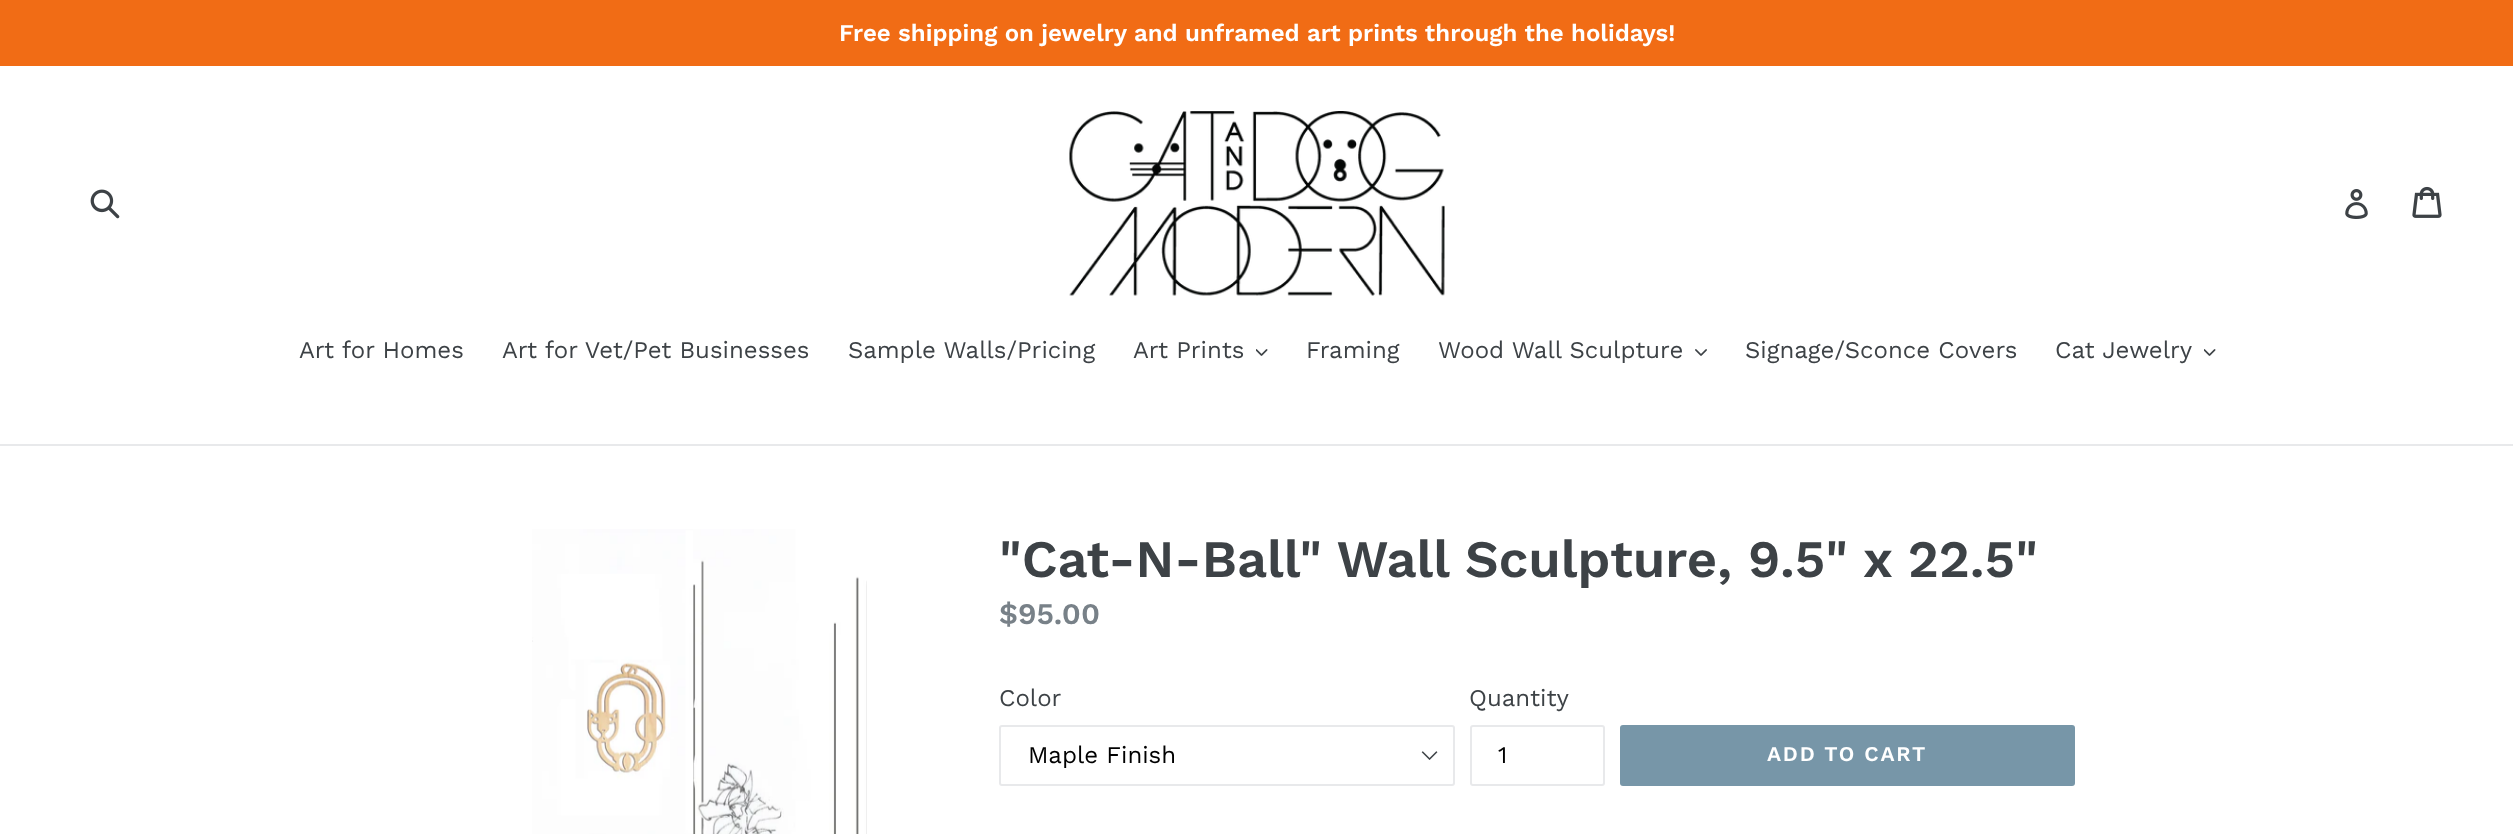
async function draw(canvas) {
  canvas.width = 2513;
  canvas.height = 834;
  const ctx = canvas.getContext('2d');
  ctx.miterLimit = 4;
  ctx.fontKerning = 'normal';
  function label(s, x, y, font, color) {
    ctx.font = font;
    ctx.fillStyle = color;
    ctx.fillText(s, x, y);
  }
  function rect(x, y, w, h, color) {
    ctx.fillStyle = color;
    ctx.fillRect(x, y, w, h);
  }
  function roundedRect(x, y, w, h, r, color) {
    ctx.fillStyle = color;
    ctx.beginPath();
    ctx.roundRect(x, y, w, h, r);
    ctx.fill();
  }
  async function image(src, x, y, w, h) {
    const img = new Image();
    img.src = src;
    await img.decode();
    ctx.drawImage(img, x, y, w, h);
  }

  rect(0, 0, 2513, 834, '#fff');
  rect(0, 0, 2513, 66, '#f16c15');
  label('Free shipping on jewelry and unframed art prints through the holidays!', 839, 41, '600 24px Work Sans', '#fff');
  await image('assets/img1.png', 90, 189, 30, 30);
  await image('assets/img2.png', 1069, 111, 376, 185);
  await image('assets/img3.png', 2345, 189, 23, 30);
  await image('assets/img4.png', 2412, 186, 30, 32);
  rect(0, 444, 2513, 2, '#e8e9eb');
  label('Art for Homes', 299, 358, '24px Work Sans', '#3d4246');
  label('Art for Vet/Pet Businesses', 502, 358, '24px Work Sans', '#3d4246');
  label('Sample Walls/Pricing', 848, 358, '24px Work Sans', '#3d4246');
  label('Art Prints', 1133, 358, '24px Work Sans', '#3d4246');
  await image('assets/img5.png', 1256, 349, 12, 7);
  label('Framing', 1306, 358, '24px Work Sans', '#3d4246');
  label('Wood Wall Sculpture', 1438, 358, '24px Work Sans', '#3d4246');
  await image('assets/img6.png', 1695, 349, 12, 7);
  label('Signage/Sconce Covers', 1745, 358, '24px Work Sans', '#3d4246');
  label('Cat Jewelry', 2055, 358, '24px Work Sans', '#3d4246');
  await image('assets/img5.png', 2204, 349, 12, 7);
  await image('assets/img7.png', 532, 529, 335, 305);
  label('"Cat-N-Ball" Wall Sculpture, 9.5" x 22.5"', 999, 577, '600 52.5px Work Sans', '#3d4246');
  label('$95.00', 999, 624, '600 30px Work Sans', '#788188');
  label('Color', 999, 706, '24px Work Sans', '#3d4246');
  await image('assets/img8.png', 1421, 751, 17, 9);
  ctx.beginPath();
  ctx.roundRect(1000, 726, 454, 59, 2);
  ctx.strokeStyle = '#e8e9eb';
  ctx.lineWidth = 2;
  ctx.stroke();
  label('Maple Finish', 1028, 763, '24px Work Sans', '#000');
  label('Quantity', 1469, 706, '24px Work Sans', '#3d4246');
  ctx.beginPath();
  ctx.roundRect(1471, 726, 133, 59, 2);
  ctx.stroke();
  label('1', 1498, 763, '24px Work Sans', '#000');
  roundedRect(1620, 725, 455, 61, 3, '#7796a8');
  ctx.letterSpacing = '1.75px';
  label('ADD TO CART', 1767, 761, '600 21px Work Sans', '#fff');
}

draw(document.querySelector('canvas'));
